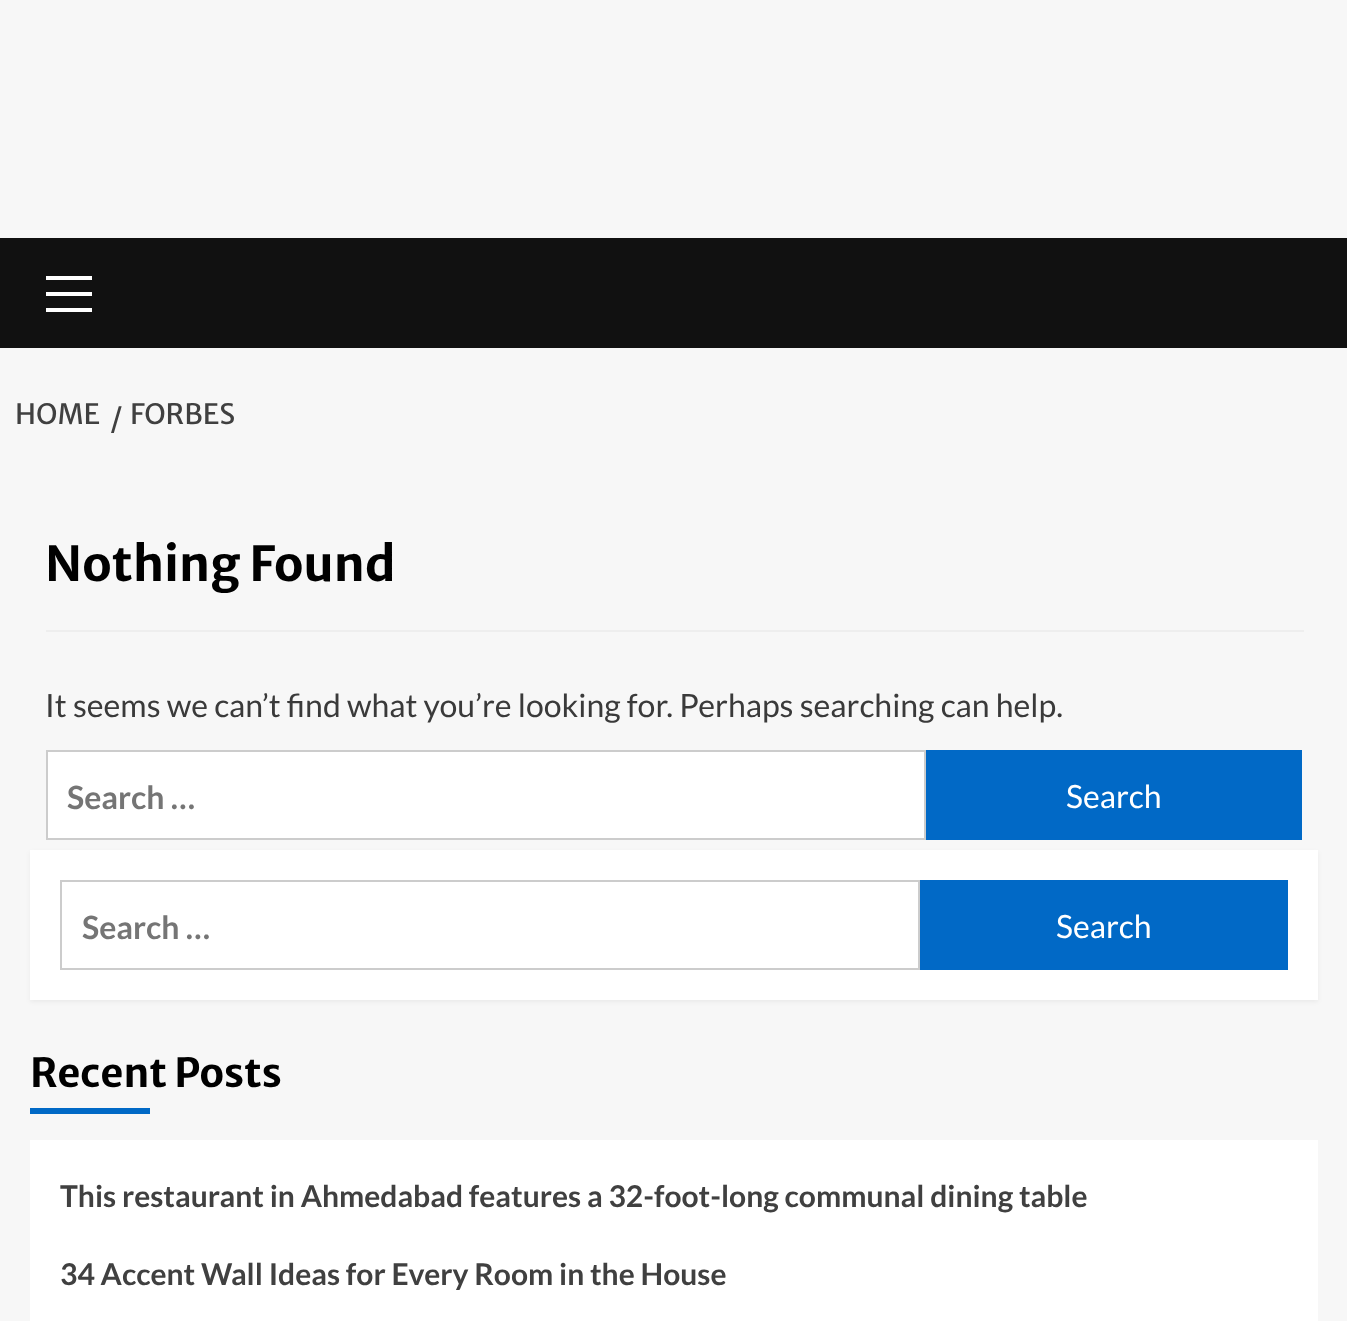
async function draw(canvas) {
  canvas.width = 1347;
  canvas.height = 1321;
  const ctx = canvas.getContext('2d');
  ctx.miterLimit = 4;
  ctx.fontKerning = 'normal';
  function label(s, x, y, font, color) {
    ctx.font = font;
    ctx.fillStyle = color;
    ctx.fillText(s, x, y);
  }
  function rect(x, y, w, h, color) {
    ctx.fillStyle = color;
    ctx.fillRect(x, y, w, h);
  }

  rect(0, 0, 1347, 1321, '#f7f7f7');
  rect(0, 238, 1347, 110, '#111');
  rect(46, 292, 46, 4, '#fff');
  rect(46, 276, 46, 4, '#fff');
  rect(46, 308, 46, 4, '#fff');
  label('HOME', 15, 424, '28px Merriweather Sans', '#404040');
  label('/', 110, 428, '28px Merriweather Sans', '#404040');
  label('FORBES', 130, 424, '28px Merriweather Sans', '#404040');
  rect(46, 630, 1258, 2, '#eee');
  label('Nothing Found', 45, 581, 'bold 48px Merriweather Sans', '#000');
  label('It seems we can’t find what you’re looking for. Perhaps searching can help.', 45, 717, '32px Lato', '#3a3a3a');
  ctx.fillStyle = '#fff';
  ctx.beginPath();
  ctx.rect(47, 751, 878, 88);
  ctx.fill();
  ctx.strokeStyle = '#ccc';
  ctx.lineWidth = 2;
  ctx.stroke();
  label('Search …', 67, 809, 'bold 32px Lato', '#757575');
  rect(926, 750, 376, 90, '#0169c6');
  label('Search', 1066, 808, '32px Lato', '#fff');
  ctx.fillStyle = '#0000000d';
  ctx.filter = 'blur(2px)';
  ctx.beginPath();
  ctx.rect(30, 852, 1288, 150);
  ctx.fill();
  ctx.filter = 'none';
  rect(30, 850, 1288, 150, '#fff');
  ctx.strokeRect(61, 881, 858, 88);
  label('Search …', 82, 939, 'bold 32px Lato', '#757575');
  rect(920, 880, 368, 90, '#0169c6');
  label('Search', 1056, 938, '32px Lato', '#fff');
  label('Recent Posts', 30, 1087, 'bold 40px Merriweather Sans', '#000');
  rect(30, 1108, 120, 6, '#0169c6');
  rect(30, 1140, 1288, 181, '#fff');
  label('This restaurant in Ahmedabad features a 32-foot-long communal dining table', 60, 1207, 'bold 30px Lato', '#404040');
  label('34 Accent Wall Ideas for Every Room in the House', 60, 1285, 'bold 30px Lato', '#404040');
}

draw(document.querySelector('canvas'));
